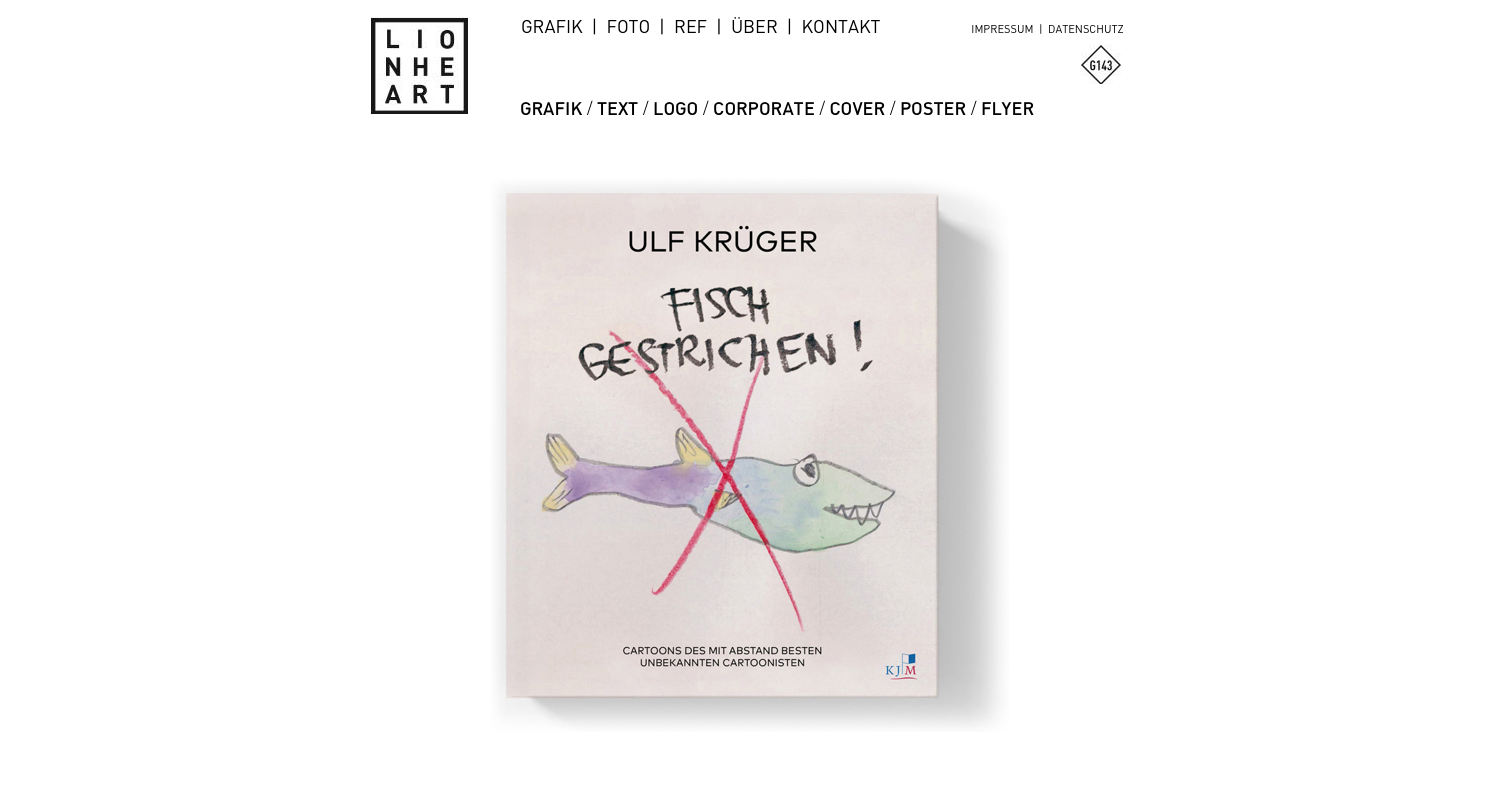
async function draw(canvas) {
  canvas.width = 1502;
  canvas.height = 787;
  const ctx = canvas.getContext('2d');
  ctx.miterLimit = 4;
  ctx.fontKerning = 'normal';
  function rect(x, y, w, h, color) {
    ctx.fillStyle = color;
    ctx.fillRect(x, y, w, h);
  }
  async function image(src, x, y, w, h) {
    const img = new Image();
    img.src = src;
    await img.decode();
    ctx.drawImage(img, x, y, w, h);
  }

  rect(0, 0, 1502, 787, '#fff');
  await image('assets/img1.png', 371, 17, 97, 97);
  await image('assets/img2.png', 522, 17, 601, 18);
  await image('assets/img3.png', 1081, 44, 40, 40);
  await image('assets/img4.png', 521, 100, 513, 15);
  await image('assets/img5.png', 491, 179, 518, 553);
}

draw(document.querySelector('canvas'));
